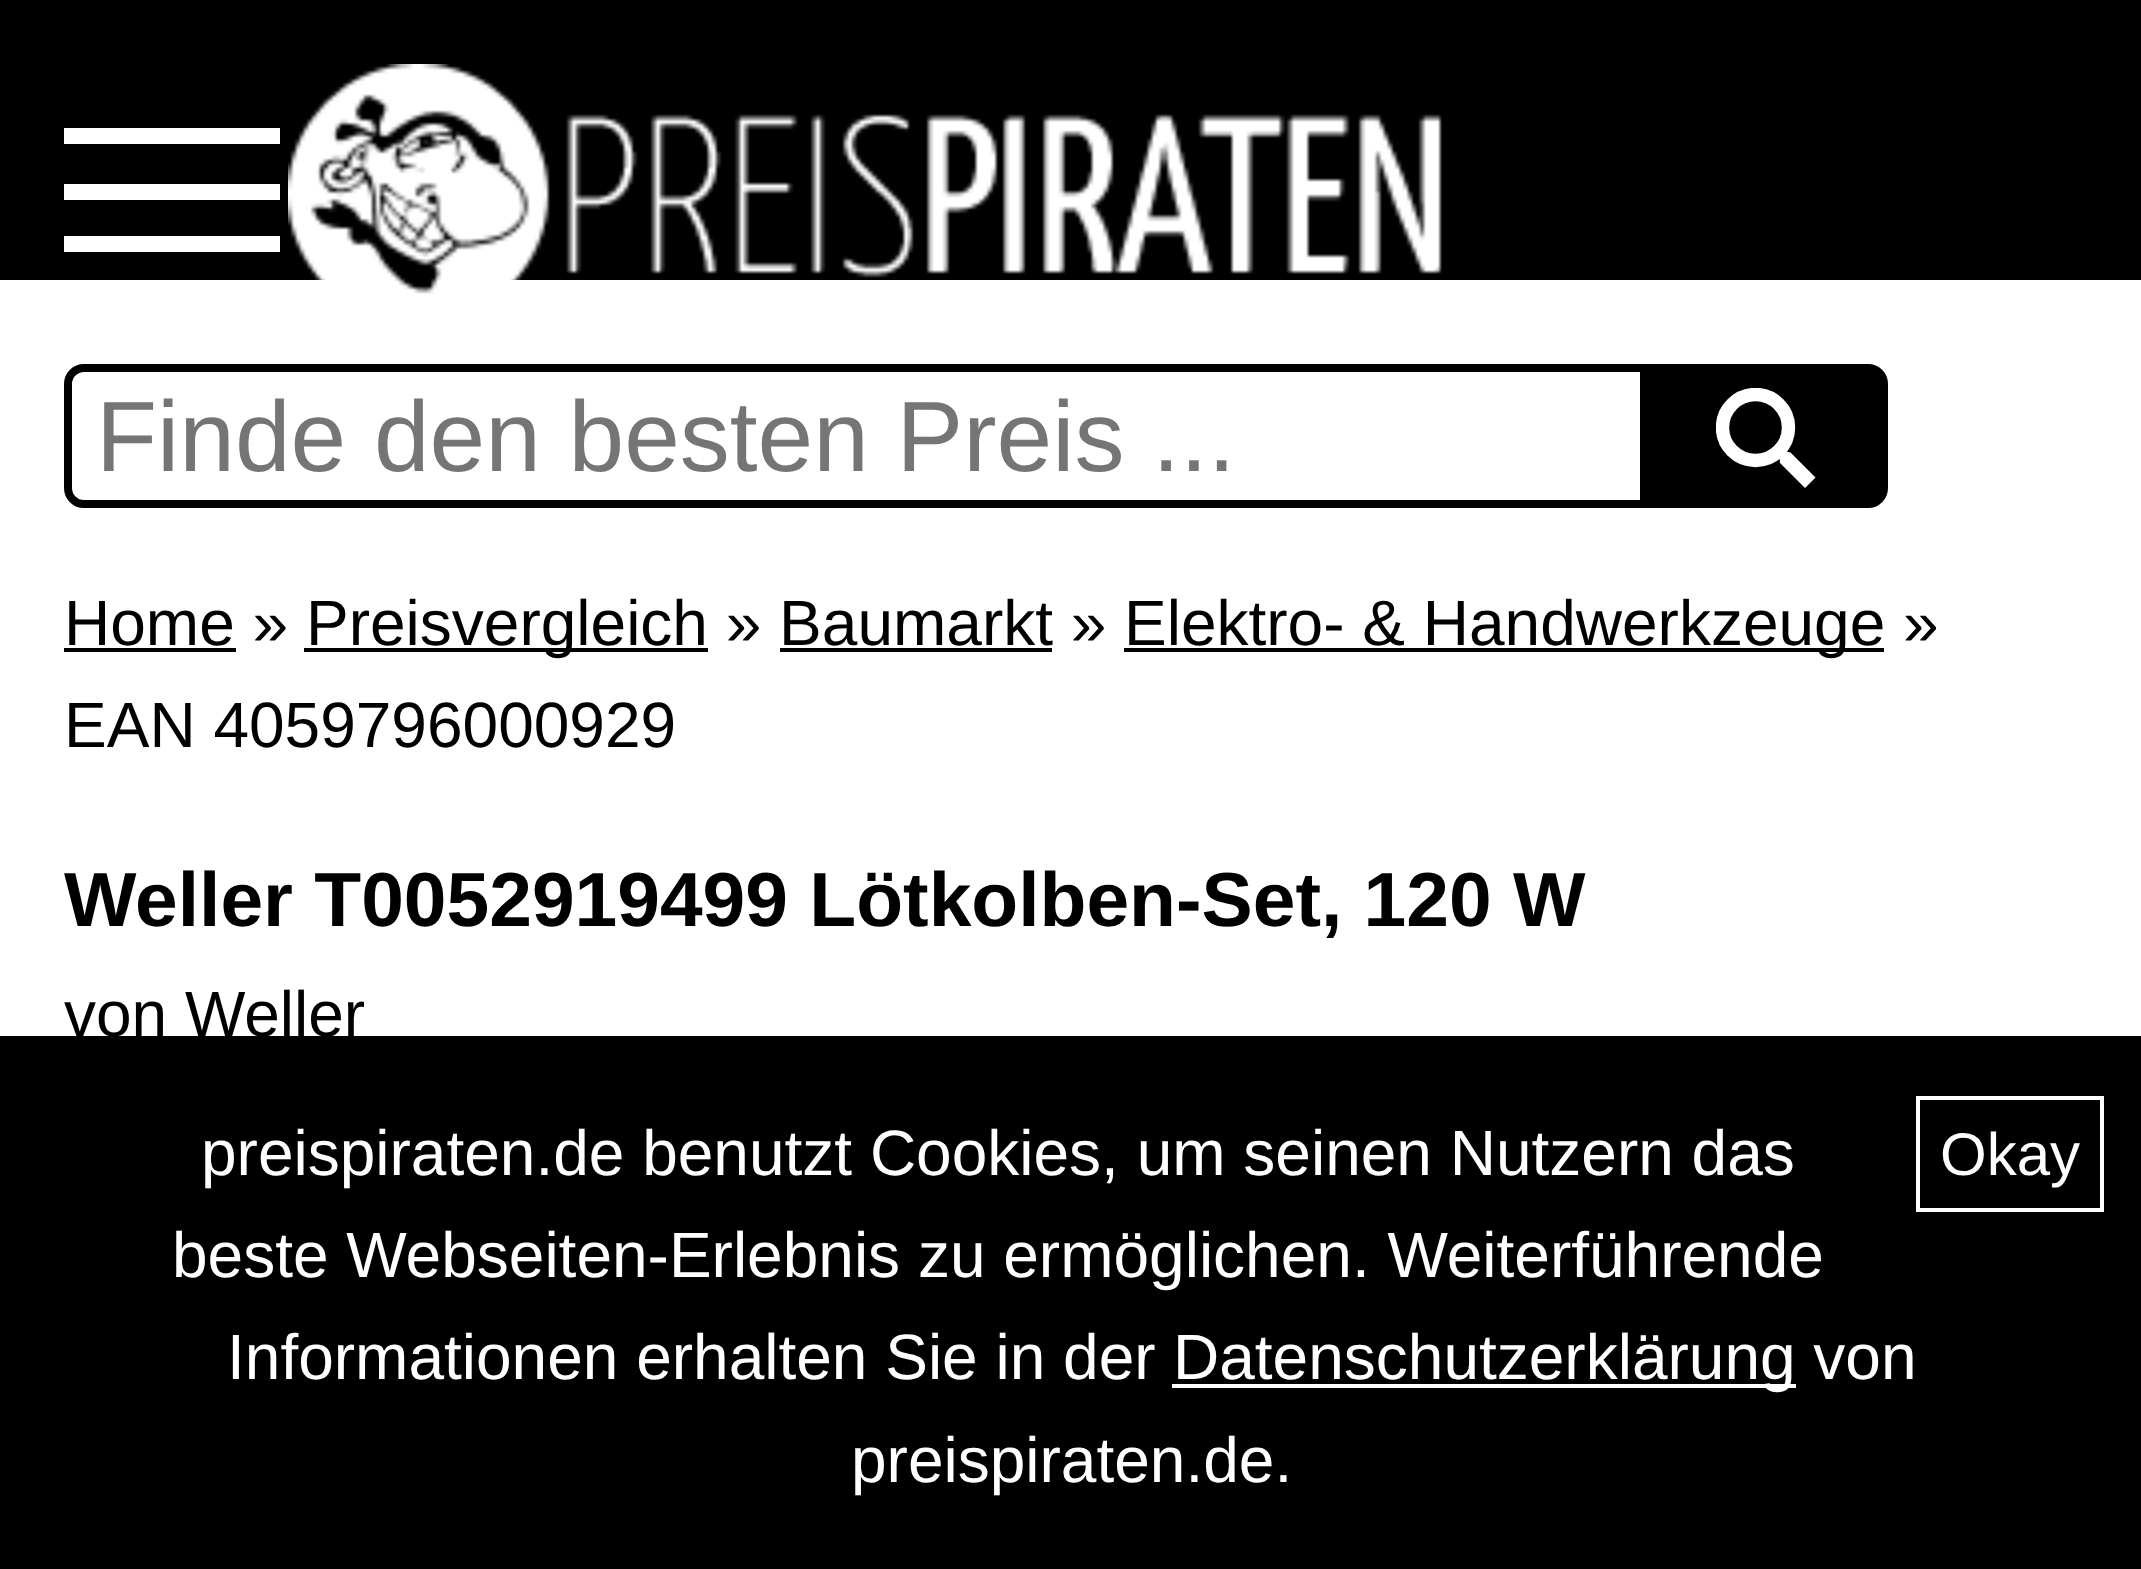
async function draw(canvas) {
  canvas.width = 2141;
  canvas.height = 1569;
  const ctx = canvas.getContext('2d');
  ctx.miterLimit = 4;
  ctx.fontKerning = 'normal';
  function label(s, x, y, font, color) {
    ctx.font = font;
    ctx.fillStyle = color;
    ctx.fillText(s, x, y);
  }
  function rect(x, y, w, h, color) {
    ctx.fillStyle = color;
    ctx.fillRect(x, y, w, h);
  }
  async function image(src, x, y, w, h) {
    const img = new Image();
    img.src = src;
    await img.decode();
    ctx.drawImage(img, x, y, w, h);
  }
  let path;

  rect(0, 0, 2141, 1569, '#fff');
  rect(0, 0, 2141, 280, '#000');
  rect(64, 236, 216, 16, '#fff');
  rect(64, 128, 216, 16, '#fff');
  rect(64, 184, 216, 16, '#fff');
  await image('assets/img1.png', 288, 64, 1154, 230);
  ctx.beginPath();
  ctx.roundRect(68, 368, 1576, 136, [16, 0, 0, 16]);
  ctx.strokeStyle = '#000';
  ctx.lineWidth = 8;
  ctx.stroke();
  label('Finde den besten Preis ...', 96, 471, '100px Liberation Sans', '#757575');
  ctx.fillStyle = '#000';
  ctx.beginPath();
  ctx.roundRect(1650, 366, 236, 140, [0, 18, 18, 0]);
  ctx.fill();
  ctx.lineWidth = 4;
  ctx.stroke();
  ctx.save();
  ctx.beginPath();
  ctx.rect(1716, 388, 100, 100);
  ctx.clip();
  ctx.beginPath();
  ctx.arc(1755.5, 427.5, 33, 0, 2 * Math.PI);
  ctx.strokeStyle = '#fff';
  ctx.lineWidth = 13.4;
  ctx.stroke();
  ctx.restore();
  ctx.fillStyle = '#fff';
  path = new Path2D('M1788 449.5L1786.5 451.5L1790.5 452.5L1815.5 477.5L1805 488L1780 463L1779.5 458.5L1777.5 460H1777L1787.5 449Z');
  ctx.fill(path, 'evenodd');
  label('Home »', 64, 645, '64px Liberation Sans', '#000');
  rect(64, 648, 172, 4, '#000');
  rect(304, 648, 404, 4, '#000');
  label('Preisvergleich » Baumarkt »', 306, 645, '64px Liberation Sans', '#000');
  rect(1124, 648, 760, 4, '#000');
  label('Elektro- & Handwerkzeuge »', 1124, 645, '64px Liberation Sans', '#000');
  rect(780, 648, 272, 4, '#000');
  label('EAN 4059796000929', 64, 747, '64px Liberation Sans', '#000');
  label('Weller T0052919499 Lötkolben-Set, 120 W', 64, 926, 'bold 76.75px Liberation Sans', '#000');
  label('von Weller', 64, 1036, '64px Liberation Sans', '#000');
  rect(0, 1036, 2141, 533, '#000');
  label('preispiraten.de benutzt Cookies, um seinen Nutzern das', 201, 1175, '64px Liberation Sans', '#fff');
  label('beste Webseiten-Erlebnis zu ermöglichen. Weiterführende', 172, 1277, '64px Liberation Sans', '#fff');
  label('Informationen erhalten Sie in der', 227, 1379, '64px Liberation Sans', '#fff');
  rect(1172, 1384, 624, 4, '#fff');
  label('Datenschutzerklärung von', 1173, 1379, '64px Liberation Sans', '#fff');
  label('preispiraten.de.', 851, 1482, '64px Liberation Sans', '#fff');
  ctx.strokeStyle = '#fff';
  ctx.strokeRect(1918, 1098, 184, 112);
  label('Okay', 1940, 1175, '60px Liberation Sans', '#fff');
}

draw(document.querySelector('canvas'));
